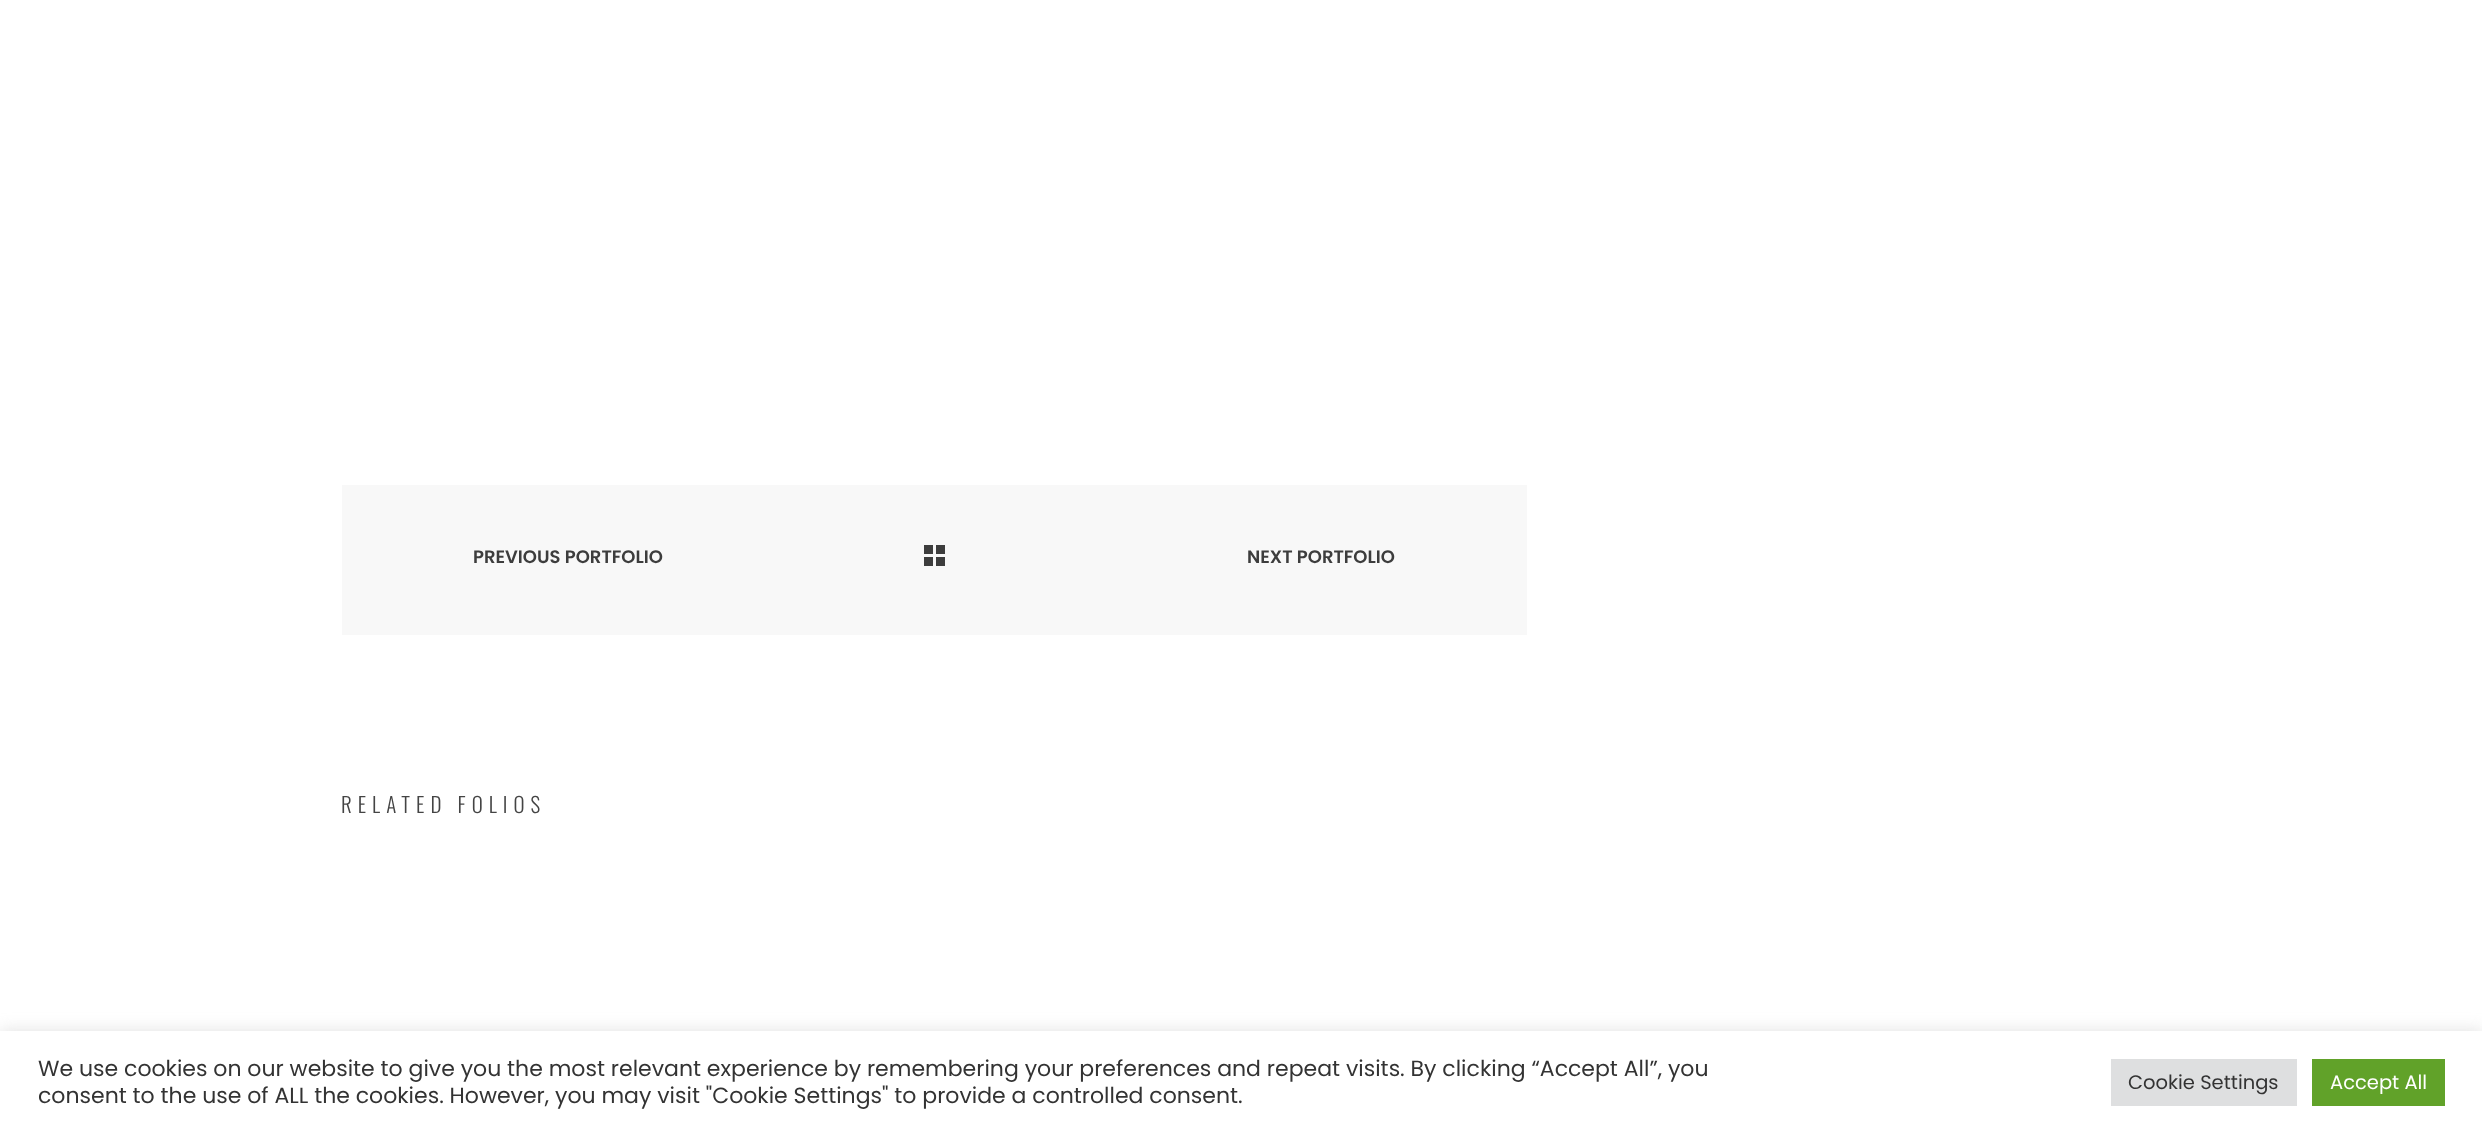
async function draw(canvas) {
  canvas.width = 2482;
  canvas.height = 1134;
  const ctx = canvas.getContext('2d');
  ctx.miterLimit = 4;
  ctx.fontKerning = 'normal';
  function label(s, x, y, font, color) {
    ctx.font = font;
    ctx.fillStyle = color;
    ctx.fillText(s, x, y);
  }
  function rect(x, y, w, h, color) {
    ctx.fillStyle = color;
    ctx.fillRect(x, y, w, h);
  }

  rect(0, 0, 2482, 1134, '#fff');
  rect(342, 485, 1185, 150, '#f8f8f8');
  label('PREVIOUS PORTFOLIO', 473, 563, '600 18px Poppins', '#3d3d3d');
  rect(924, 545, 9, 9, '#3d3d3d');
  rect(936, 545, 9, 9, '#3d3d3d');
  rect(924, 557, 9, 9, '#3d3d3d');
  rect(936, 557, 9, 9, '#3d3d3d');
  label('NEXT PORTFOLIO', 1247, 563, '600 18px Poppins', '#3d3d3d');
  ctx.letterSpacing = '6px';
  label('RELATED FOLIOS', 341, 813, '300 21px Oswald', '#444');
  ctx.fillStyle = '#acabab4d';
  ctx.filter = 'blur(7.5px)';
  ctx.beginPath();
  ctx.rect(0, 1029, 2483, 104);
  ctx.fill();
  ctx.filter = 'none';
  rect(0, 1031, 2482, 103, '#fff');
  ctx.letterSpacing = '0px';
  label('We use cookies on our website to give you the most relevant experience by remembering your preferences and repeat visits. By clicking “Accept All”, you', 38, 1076, '22px Poppins', '#333');
  label('consent to the use of ALL the cookies. However, you may visit "Cookie Settings" to provide a controlled consent.', 38, 1103, '22px Poppins', '#333');
  rect(2111, 1059, 186, 47, '#dedfe0');
  label('Cookie Settings', 2128, 1089, '19.5px Poppins', '#333');
  rect(2312, 1059, 133, 47, '#61a229');
  label('Accept All', 2330, 1089, '19.5px Poppins', '#fff');
}

draw(document.querySelector('canvas'));
